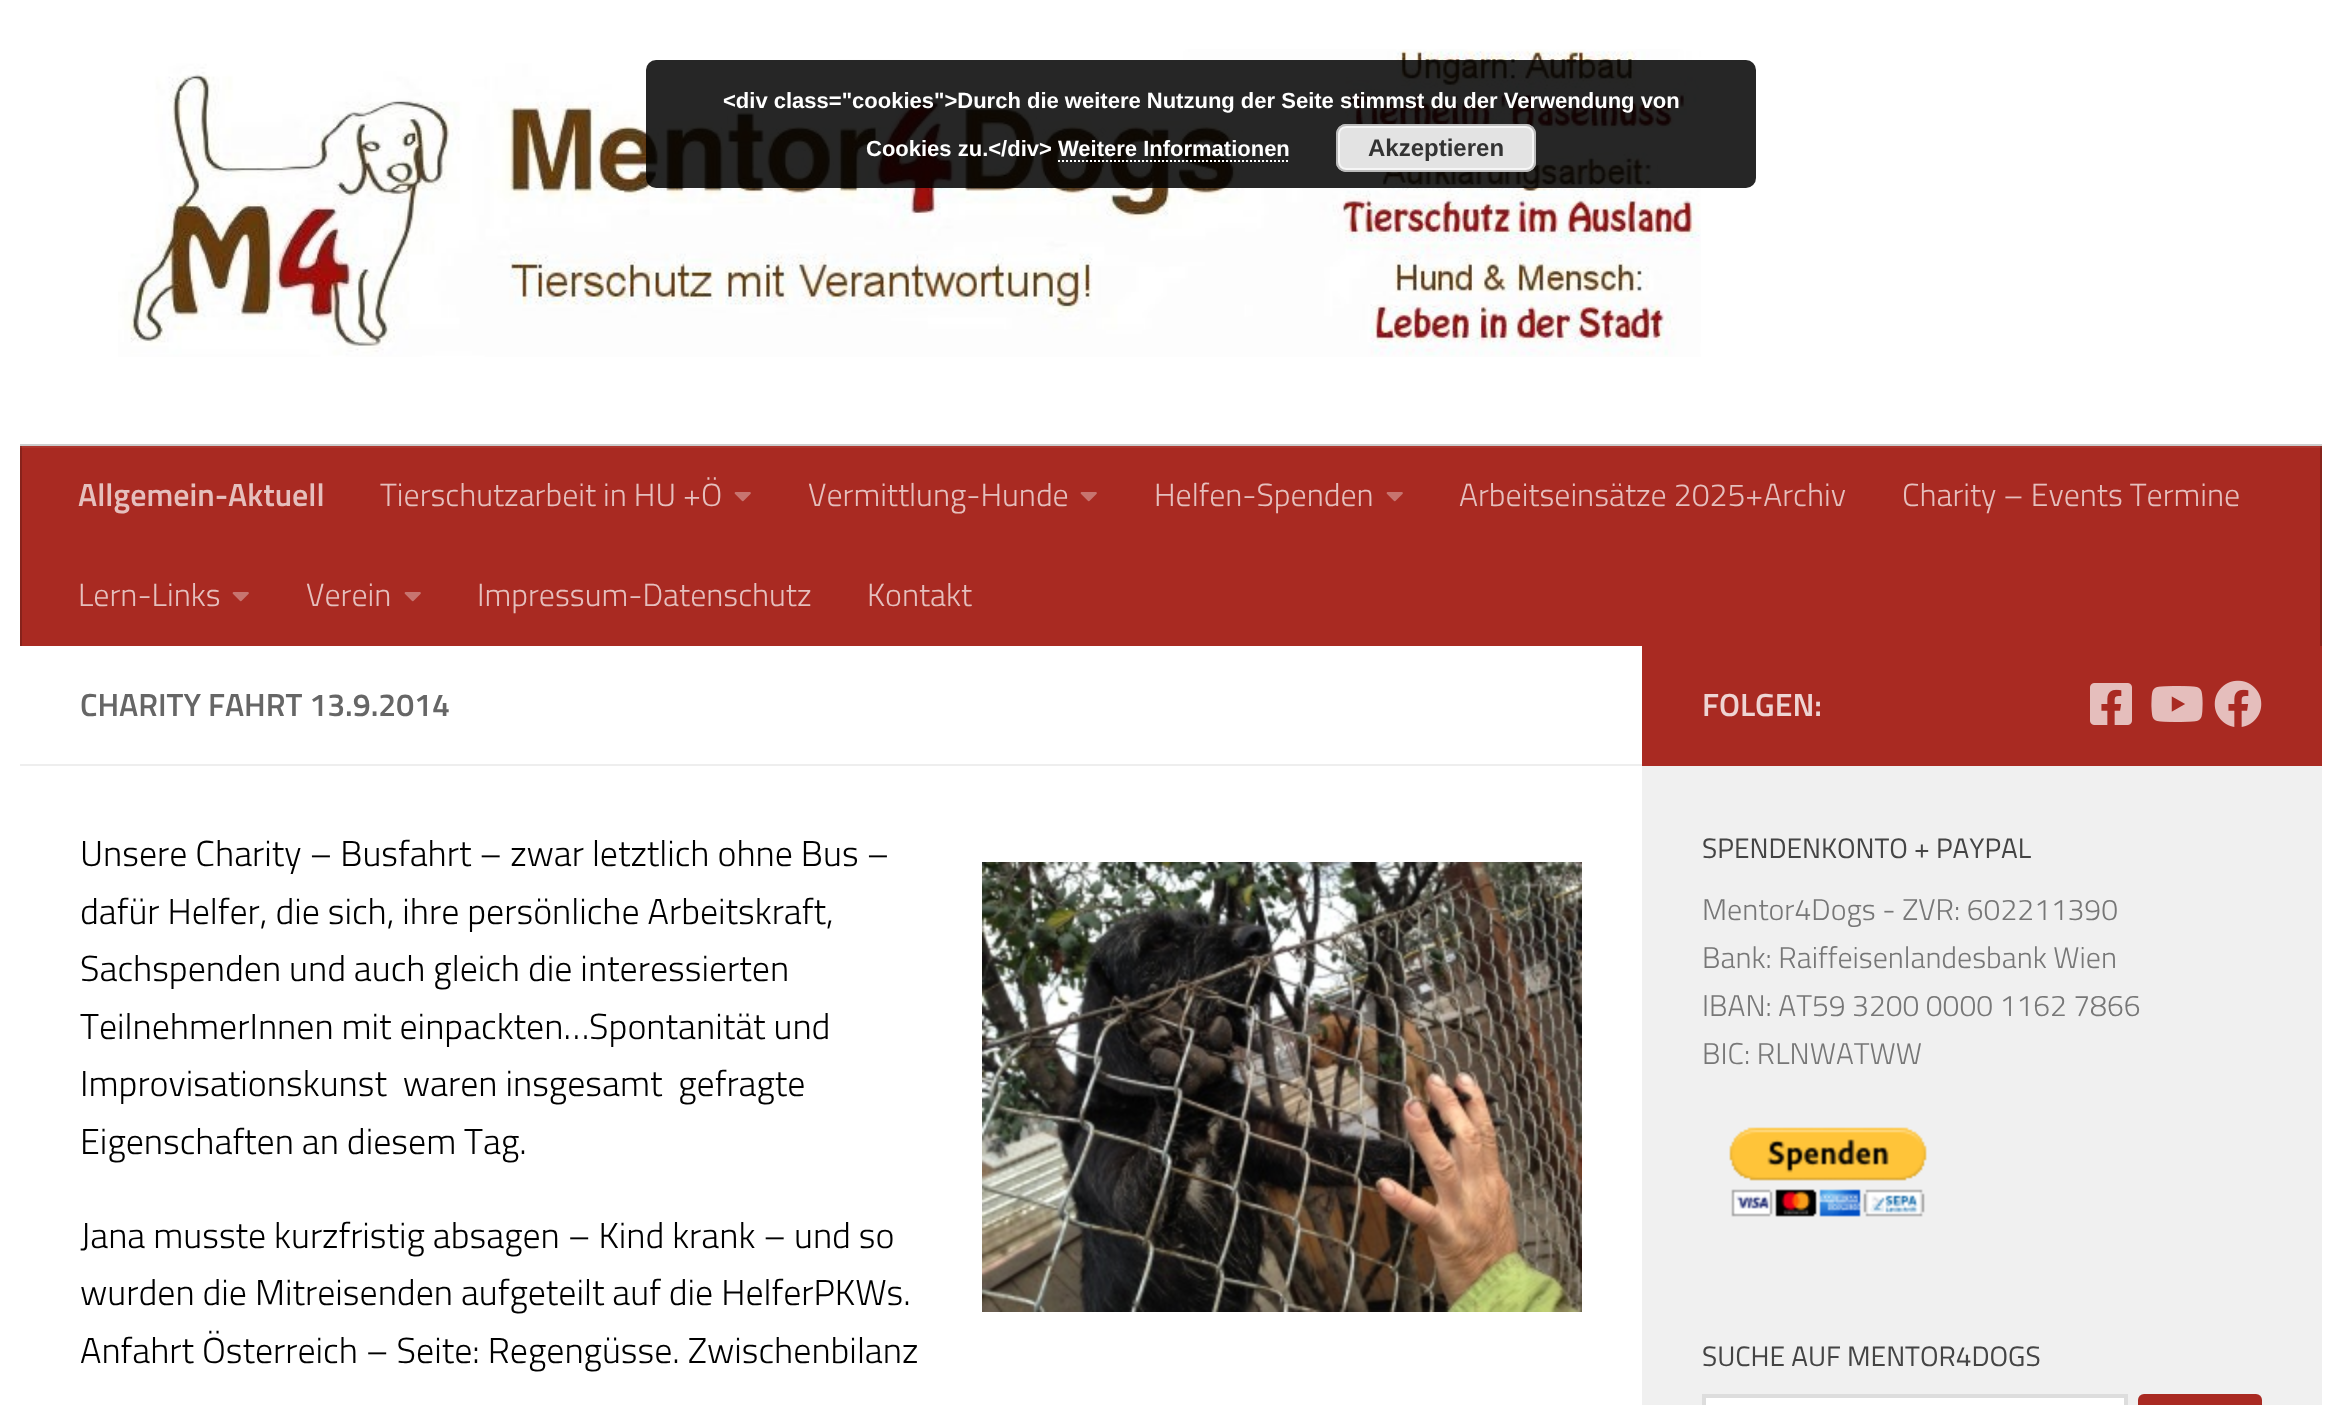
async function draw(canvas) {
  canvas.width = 2342;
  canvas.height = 1405;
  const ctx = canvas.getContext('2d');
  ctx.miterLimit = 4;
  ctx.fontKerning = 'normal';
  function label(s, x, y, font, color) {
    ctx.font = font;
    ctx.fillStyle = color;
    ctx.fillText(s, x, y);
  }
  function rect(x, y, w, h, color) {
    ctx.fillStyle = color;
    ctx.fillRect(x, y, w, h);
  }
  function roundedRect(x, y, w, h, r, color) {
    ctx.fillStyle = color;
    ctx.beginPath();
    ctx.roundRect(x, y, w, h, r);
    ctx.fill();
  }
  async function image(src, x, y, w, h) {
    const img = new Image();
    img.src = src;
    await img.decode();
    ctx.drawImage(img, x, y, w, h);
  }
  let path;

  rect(0, 0, 2342, 1405, '#fff');
  await image('assets/img1.png', 118, 49, 1583, 308);
  roundedRect(646, 60, 1110, 128, 10, '#000000d9');
  label('<div class="cookies">Durch die weitere Nutzung der Seite stimmst du der Verwendung von', 723, 108, 'bold 22px Liberation Sans', '#fff');
  label('Cookies zu.<\/div> Weitere Informationen', 866, 156, 'bold 22px Liberation Sans', '#fff');
  roundedRect(1336, 124, 200, 48, 10, '#e3e3e3');
  ctx.beginPath();
  ctx.roundRect(1339, 127, 194, 42, 7);
  ctx.strokeStyle = '#f6f6f6';
  ctx.lineWidth = 2;
  ctx.stroke();
  ctx.beginPath();
  ctx.roundRect(1337, 125, 198, 46, 9);
  ctx.strokeStyle = '#bbb';
  ctx.stroke();
  label('Akzeptieren', 1368, 156, 'bold 24px Liberation Sans', '#333');
  path = new Path2D('M1058 161H1290');
  ctx.strokeStyle = '#fff';
  ctx.setLineDash([2, 2]);
  ctx.stroke(path);
  rect(20, 444, 2302, 2, '#ccc');
  rect(22, 448, 2298, 198, '#a92a22');
  rect(20, 446, 2302, 2, '#ad352d');
  rect(2320, 446, 2, 200, '#87221b');
  rect(2320, 446, 2, 2, '#8d2d26');
  rect(20, 446, 2, 200, '#87221b');
  rect(20, 446, 2, 2, '#8d2d26');
  label('Allgemein-Aktuell', 78, 506, '600 32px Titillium', '#e5bfbd');
  label('Tierschutzarbeit in HU +Ö', 380, 506, '300 32px Titillium', '#e5bfbd');
  await image('assets/img2.png', 734, 492, 17, 10);
  label('Vermittlung-Hunde', 808, 506, '300 32px Titillium', '#e5bfbd');
  await image('assets/img2.png', 1080, 492, 17, 10);
  label('Helfen-Spenden', 1154, 506, '300 32px Titillium', '#e5bfbd');
  await image('assets/img2.png', 1386, 492, 17, 10);
  label('Arbeitseinsätze 2025+Archiv', 1459, 506, '300 32px Titillium', '#e5bfbd');
  label('Charity – Events Termine', 1902, 506, '300 32px Titillium', '#e5bfbd');
  label('Lern-Links', 78, 606, '300 32px Titillium', '#e5bfbd');
  await image('assets/img2.png', 232, 592, 17, 10);
  label('Verein', 306, 606, '300 32px Titillium', '#e5bfbd');
  await image('assets/img2.png', 404, 592, 17, 10);
  label('Impressum-Datenschutz', 477, 606, '300 32px Titillium', '#e5bfbd');
  label('Kontakt', 867, 606, '300 32px Titillium', '#e5bfbd');
  rect(20, 764, 1622, 2, '#eee');
  label('CHARITY FAHRT 13.9.2014', 80, 716, '600 32px Titillium', '#666');
  label('Unsere Charity – Busfahrt – zwar letztlich ohne Bus –', 80, 866, '300 36px Titillium', '#000');
  label('dafür Helfer, die sich, ihre persönliche Arbeitskraft,', 80, 924, '300 36px Titillium', '#000');
  await image('assets/img3.png', 982, 862, 600, 450);
  label('Sachspenden und auch gleich die interessierten', 80, 981, '300 36px Titillium', '#000');
  label('TeilnehmerInnen mit einpackten…Spontanität und', 80, 1039, '300 36px Titillium', '#000');
  label('Improvisationskunst  waren insgesamt  gefragte', 80, 1096, '300 36px Titillium', '#000');
  label('Eigenschaften an diesem Tag.', 80, 1154, '300 36px Titillium', '#000');
  label('Jana musste kurzfristig absagen – Kind krank – und so', 80, 1248, '300 36px Titillium', '#000');
  label('wurden die Mitreisenden aufgeteilt auf die HelferPKWs.', 80, 1305, '300 36px Titillium', '#000');
  label('Anfahrt Österreich – Seite: Regengüsse. Zwischenbilanz', 80, 1363, '300 36px Titillium', '#000');
  rect(1642, 646, 680, 120, '#a92a22');
  label('FOLGEN:', 1702, 716, '600 32px Titillium', '#eed4d3');
  await image('assets/img4.png', 2090, 683, 42, 42);
  await image('assets/img5.png', 2151, 686, 52, 36);
  await image('assets/img6.png', 2214, 680, 48, 47);
  rect(1642, 766, 680, 639, '#f0f0f0');
  label('SPENDENKONTO + PAYPAL', 1702, 858, '28.1px Titillium', '#444');
  label('Mentor4Dogs - ZVR: 602211390', 1702, 920, '300 30px Titillium', '#777');
  label('Bank: Raiffeisenlandesbank Wien', 1702, 968, '300 30px Titillium', '#777');
  label('IBAN: AT59 3200 0000 1162 7866', 1702, 1016, '300 30px Titillium', '#777');
  label('BIC: RLNWATWW', 1702, 1064, '300 30px Titillium', '#777');
  await image('assets/img7.png', 1729, 1127, 198, 90);
  label('SUCHE AUF MENTOR4DOGS', 1702, 1366, '28.1px Titillium', '#444');
  ctx.fillStyle = '#fff';
  ctx.beginPath();
  ctx.rect(1704, 1396, 422, 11);
  ctx.fill();
  ctx.strokeStyle = '#ddd';
  ctx.lineWidth = 4;
  ctx.setLineDash([]);
  ctx.stroke();
  roundedRect(2138, 1394, 124, 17, 6, '#a92a22');
}

draw(document.querySelector('canvas'));
